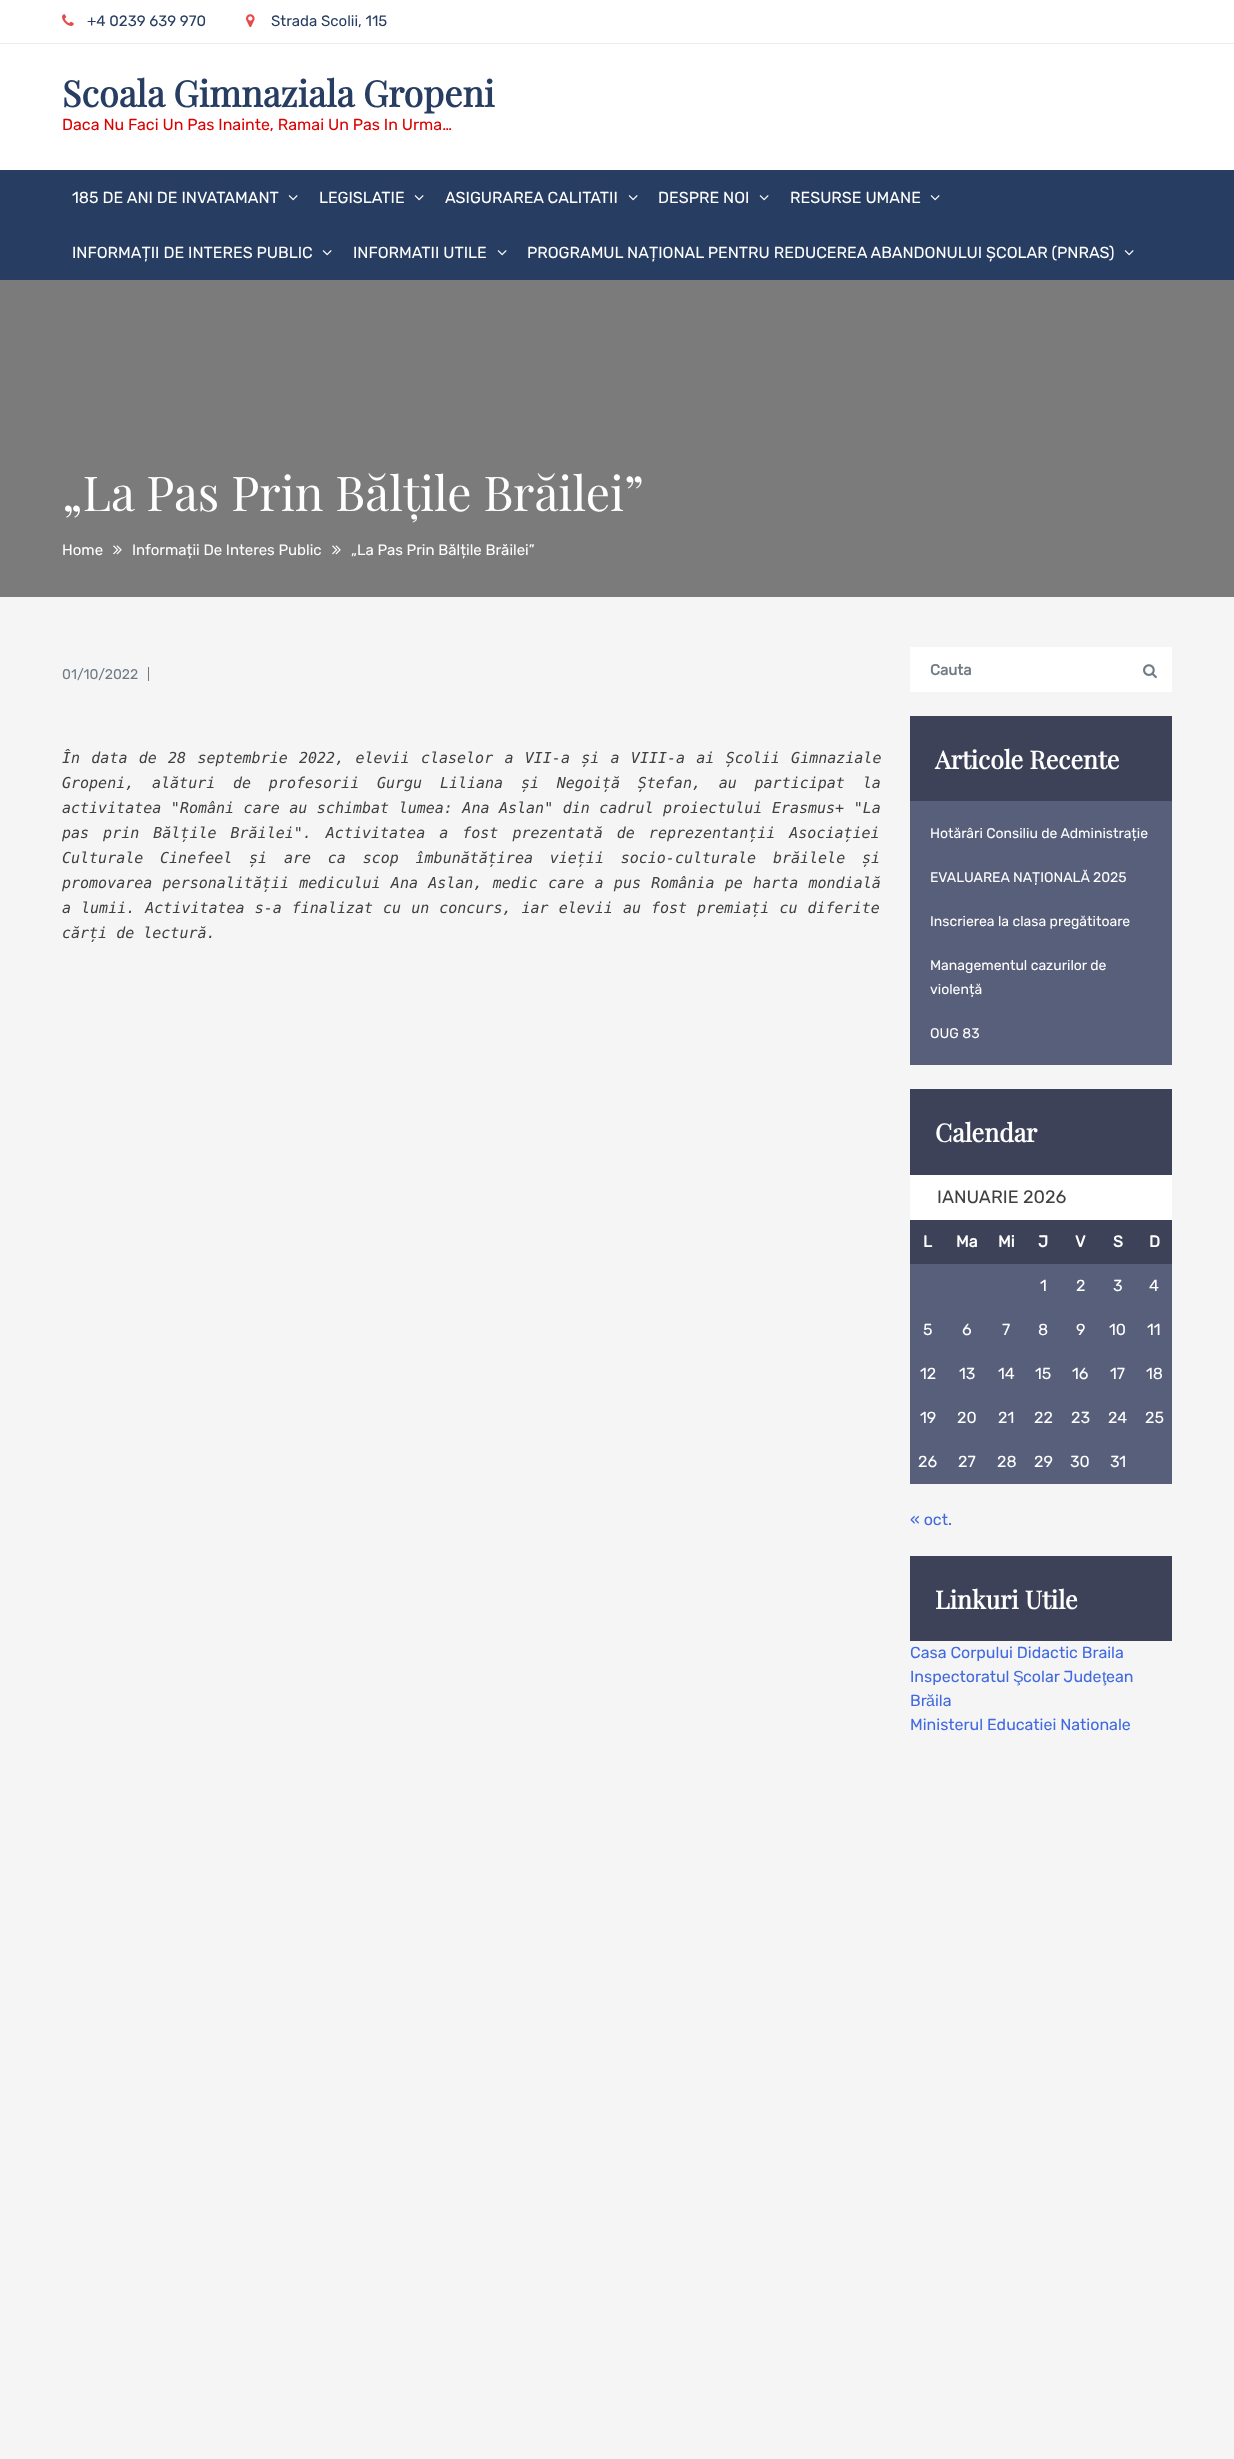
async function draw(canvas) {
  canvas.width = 1234;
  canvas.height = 2459;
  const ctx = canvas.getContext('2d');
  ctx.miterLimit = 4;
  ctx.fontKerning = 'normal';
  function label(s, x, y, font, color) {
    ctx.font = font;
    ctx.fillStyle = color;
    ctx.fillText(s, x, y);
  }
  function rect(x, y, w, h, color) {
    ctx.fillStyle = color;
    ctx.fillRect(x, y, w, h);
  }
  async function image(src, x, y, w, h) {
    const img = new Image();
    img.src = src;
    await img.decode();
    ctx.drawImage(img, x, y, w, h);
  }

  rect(0, 0, 1234, 2459, '#f5f5f5');
  rect(0, 0, 1234, 43, '#fff');
  rect(0, 43, 1234, 1, '#e9ebef');
  await image('assets/img1.png', 62, 14, 12, 12);
  label('+4 0239 639 970', 87, 26, '300 15px Rubik', '#273d62');
  await image('assets/img2.png', 246, 14, 9, 13);
  label('Strada Scolii, 115', 271, 26, '300 15px Rubik', '#273d62');
  rect(0, 44, 1234, 126, '#fff');
  label('Scoala Gimnaziala Gropeni', 62, 107, 'bold 36px Playfair Display', '#273d62');
  label('Daca Nu Faci Un Pas Inainte, Ramai Un Pas In Urma…', 62, 130, '300 16px Rubik', '#d00');
  rect(0, 170, 1234, 110, '#273d62');
  label('185 DE ANI DE INVATAMANT', 72, 203, '300 16px Rubik', '#fff');
  await image('assets/img3.png', 288, 195, 10, 6);
  label('LEGISLATIE', 319, 203, '300 16px Rubik', '#fff');
  await image('assets/img3.png', 414, 195, 10, 6);
  label('ASIGURAREA CALITATII', 445, 203, '300 16px Rubik', '#fff');
  await image('assets/img3.png', 628, 195, 10, 6);
  label('DESPRE NOI', 658, 203, '300 16px Rubik', '#fff');
  await image('assets/img3.png', 759, 195, 10, 6);
  label('RESURSE UMANE', 790, 203, '300 16px Rubik', '#fff');
  await image('assets/img3.png', 930, 195, 10, 6);
  label('INFORMAȚII DE INTERES PUBLIC', 72, 258, '300 16px Rubik', '#fff');
  await image('assets/img3.png', 322, 250, 10, 6);
  label('INFORMATII UTILE', 353, 258, '300 16px Rubik', '#fff');
  await image('assets/img3.png', 497, 250, 10, 6);
  label('PROGRAMUL NAȚIONAL PENTRU REDUCEREA ABANDONULUI ȘCOLAR (PNRAS)', 527, 258, '300 16px Rubik', '#fff');
  await image('assets/img3.png', 1124, 250, 10, 6);
  rect(0, 280, 1234, 317, '#7b7b7b');
  label('„La Pas Prin Bălțile Brăilei”', 62, 511, '48px Playfair Display', '#fff');
  label('Home', 62, 555, '300 15px Rubik', '#fff');
  await image('assets/img4.png', 113, 545, 9, 10);
  label('Informații De Interes Public', 132, 555, '300 15px Rubik', '#fff');
  await image('assets/img4.png', 332, 545, 9, 10);
  label('„La Pas Prin Bălțile Brăilei”', 351, 555, '300 15px Rubik', '#fff');
  label('01/10/2022', 62, 679, '300 14px Rubik', '#717b84');
  rect(148, 667, 1, 14, '#717b84');
  ctx.wordSpacing = '2.25px';
  label('În data de 28 septembrie 2022, elevii claselor a VII-a și a VIII-a ai Școlii Gimnaziale', 62, 763, 'italic 15px DejaVu Sans Mono', '#404040');
  ctx.wordSpacing = '8.75px';
  label('Gropeni, alături de profesorii Gurgu Liliana și Negoiță Ștefan, au participat la', 62, 788, 'italic 15px DejaVu Sans Mono', '#404040');
  ctx.wordSpacing = '0.5px';
  label('activitatea "Români care au schimbat lumea: Ana Aslan" din cadrul proiectului Erasmus+ "La', 62, 813, 'italic 15px DejaVu Sans Mono', '#404040');
  ctx.wordSpacing = '5px';
  label('pas prin Bălțile Brăilei". Activitatea a fost prezentată de reprezentanții Asociației', 62, 838, 'italic 15px DejaVu Sans Mono', '#404040');
  ctx.wordSpacing = '7.75px';
  label('Culturale Cinefeel și are ca scop îmbunătățirea vieții socio-culturale brăilele și', 62, 863, 'italic 15px DejaVu Sans Mono', '#404040');
  ctx.wordSpacing = '1.25px';
  label('promovarea personalității medicului Ana Aslan, medic care a pus România pe harta mondială', 62, 888, 'italic 15px DejaVu Sans Mono', '#404040');
  ctx.wordSpacing = '1px';
  label('a lumii. Activitatea s-a finalizat cu un concurs, iar elevii au fost premiați cu diferite', 62, 913, 'italic 15px DejaVu Sans Mono', '#404040');
  ctx.wordSpacing = '0px';
  label('cărți de lectură.', 62, 938, 'italic 15px DejaVu Sans Mono', '#404040');
  rect(910, 647, 262, 45, '#fff');
  label('Cauta', 930, 675, 'bold 15px Rubik', '#717b84');
  await image('assets/img5.png', 1143, 664, 14, 15);
  rect(910, 716, 262, 85, '#3d4259');
  label('Articole Recente', 935, 769, 'bold 25px Playfair Display', '#fff');
  rect(910, 801, 262, 264, '#585f7b');
  label('Hotărâri Consiliu de Administrație', 930, 838, '300 14px Rubik', '#fff');
  label('EVALUAREA NAȚIONALĂ 2025', 930, 882, '300 14px Rubik', '#fff');
  label('Inscrierea la clasa pregătitoare', 930, 926, '300 14px Rubik', '#fff');
  label('Managementul cazurilor de', 930, 970, '300 14px Rubik', '#fff');
  label('violență', 930, 994, '300 14px Rubik', '#fff');
  label('OUG 83', 930, 1038, '300 14px Rubik', '#fff');
  rect(910, 1089, 262, 86, '#3d4259');
  label('Calendar', 935, 1142, 'bold 25px Playfair Display', '#fff');
  rect(910, 1175, 262, 45, '#fff');
  label('IANUARIE 2026', 937, 1203, '300 18px Rubik', '#404040');
  rect(910, 1220, 262, 44, '#3d4259');
  label('L', 923, 1247, 'bold 16px Rubik', '#fff');
  label('Ma', 956, 1247, 'bold 16px Rubik', '#fff');
  label('Mi', 998, 1247, 'bold 16px Rubik', '#fff');
  label('J', 1038, 1247, 'bold 16px Rubik', '#fff');
  label('V', 1075, 1247, 'bold 16px Rubik', '#fff');
  label('S', 1113, 1247, 'bold 16px Rubik', '#fff');
  label('D', 1149, 1247, 'bold 16px Rubik', '#fff');
  rect(910, 1264, 262, 220, '#585f7b');
  label('1', 1040, 1291, '300 16px Rubik', '#fff');
  label('2', 1076, 1291, '300 16px Rubik', '#fff');
  label('3', 1113, 1291, '300 16px Rubik', '#fff');
  label('4', 1149, 1291, '300 16px Rubik', '#fff');
  label('5', 923, 1335, '300 16px Rubik', '#fff');
  label('6', 962, 1335, '300 16px Rubik', '#fff');
  label('7', 1002, 1335, '300 16px Rubik', '#fff');
  label('8', 1038, 1335, '300 16px Rubik', '#fff');
  label('9', 1076, 1335, '300 16px Rubik', '#fff');
  label('10', 1109, 1335, '300 16px Rubik', '#fff');
  label('11', 1147, 1335, '300 16px Rubik', '#fff');
  label('12', 920, 1379, '300 16px Rubik', '#fff');
  label('13', 959, 1379, '300 16px Rubik', '#fff');
  label('14', 998, 1379, '300 16px Rubik', '#fff');
  label('15', 1035, 1379, '300 16px Rubik', '#fff');
  label('16', 1072, 1379, '300 16px Rubik', '#fff');
  label('17', 1110, 1379, '300 16px Rubik', '#fff');
  label('18', 1146, 1379, '300 16px Rubik', '#fff');
  label('19', 920, 1423, '300 16px Rubik', '#fff');
  label('20', 957, 1423, '300 16px Rubik', '#fff');
  label('21', 998, 1423, '300 16px Rubik', '#fff');
  label('22', 1034, 1423, '300 16px Rubik', '#fff');
  label('23', 1071, 1423, '300 16px Rubik', '#fff');
  label('24', 1108, 1423, '300 16px Rubik', '#fff');
  label('25', 1145, 1423, '300 16px Rubik', '#fff');
  label('26', 918, 1467, '300 16px Rubik', '#fff');
  label('27', 958, 1467, '300 16px Rubik', '#fff');
  label('28', 997, 1467, '300 16px Rubik', '#fff');
  label('29', 1034, 1467, '300 16px Rubik', '#fff');
  label('30', 1070, 1467, '300 16px Rubik', '#fff');
  label('31', 1110, 1467, '300 16px Rubik', '#fff');
  label('« oct.', 910, 1525, '300 16px Rubik', '#4169e1');
  rect(910, 1556, 262, 85, '#3d4259');
  label('Linkuri Utile', 935, 1609, 'bold 25px Playfair Display', '#fff');
  label('Casa Corpului Didactic Braila', 910, 1658, '300 16px Rubik', '#4169e1');
  label('Inspectoratul', 910, 1682, '300 16px Rubik', '#4169e1');
  label('Ş', 1013, 1682, '16px Liberation Sans', '#4169e1');
  label('colar Jude', 1023, 1682, '300 16px Rubik', '#4169e1');
  label('ţ', 1102, 1682, '16px Liberation Sans', '#4169e1');
  label('ean', 1106, 1682, '300 16px Rubik', '#4169e1');
  label('Br', 910, 1706, '300 16px Rubik', '#4169e1');
  label('ă', 926, 1706, '16px Liberation Sans', '#4169e1');
  label('ila', 935, 1706, '300 16px Rubik', '#4169e1');
  label('Ministerul Educatiei Nationale', 910, 1730, '300 16px Rubik', '#4169e1');
}

draw(document.querySelector('canvas'));
